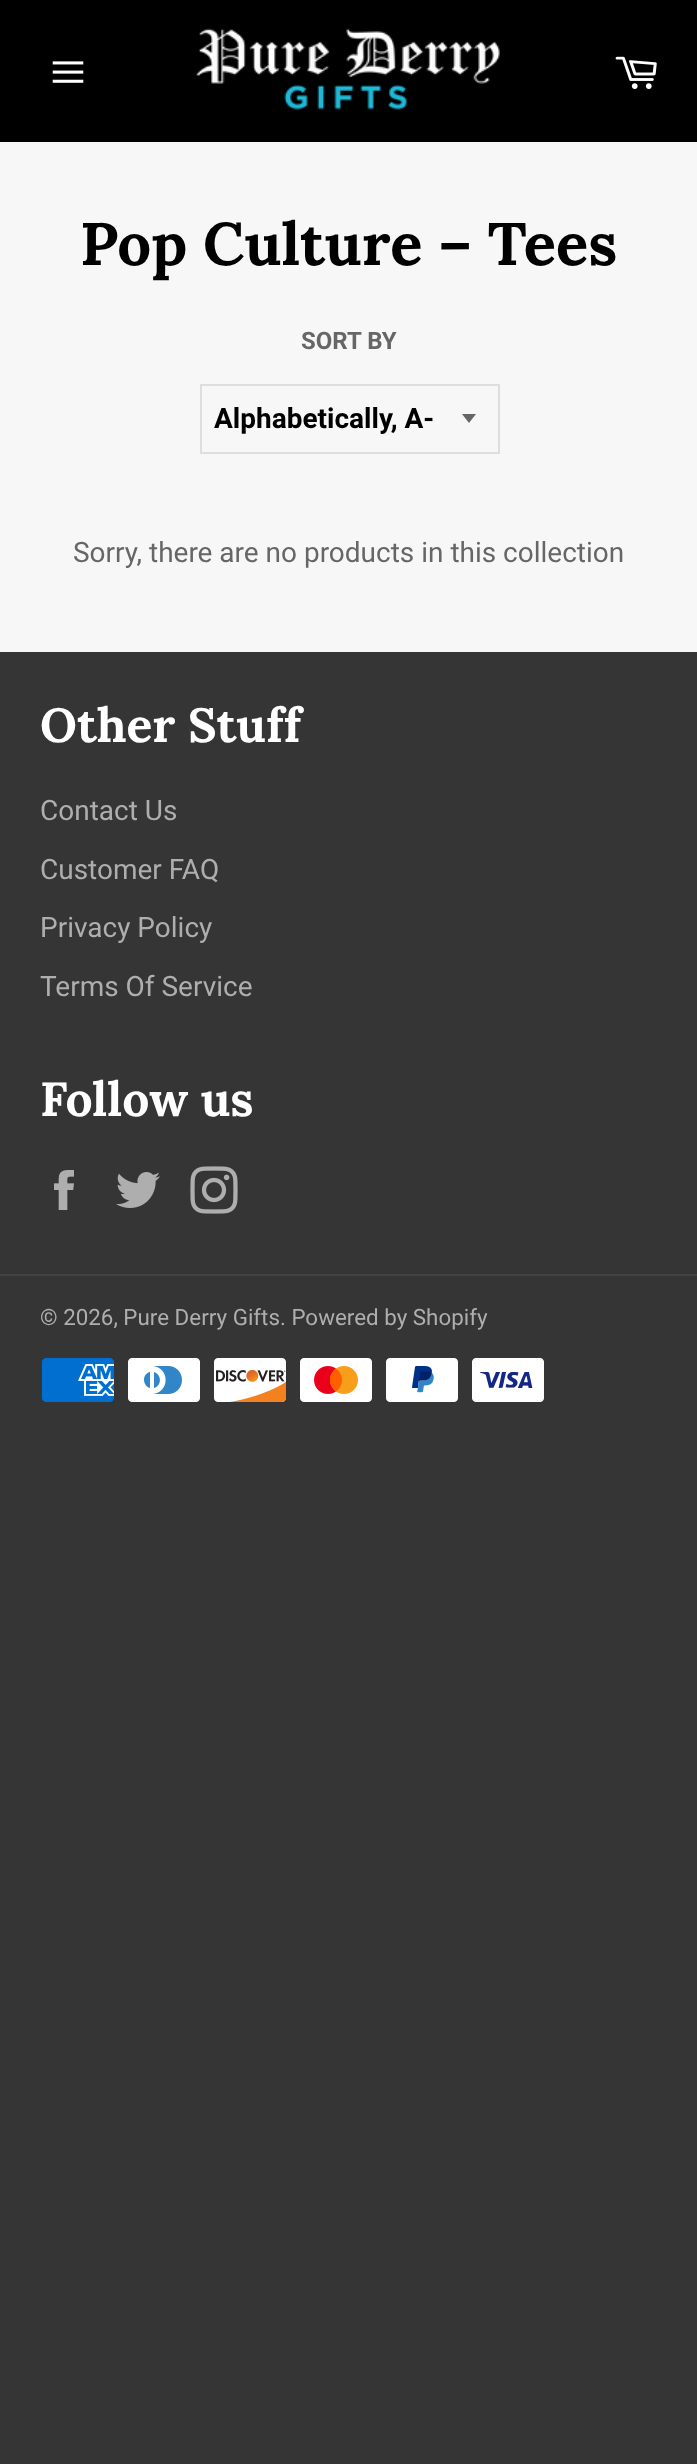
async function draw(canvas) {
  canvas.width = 697;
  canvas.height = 2464;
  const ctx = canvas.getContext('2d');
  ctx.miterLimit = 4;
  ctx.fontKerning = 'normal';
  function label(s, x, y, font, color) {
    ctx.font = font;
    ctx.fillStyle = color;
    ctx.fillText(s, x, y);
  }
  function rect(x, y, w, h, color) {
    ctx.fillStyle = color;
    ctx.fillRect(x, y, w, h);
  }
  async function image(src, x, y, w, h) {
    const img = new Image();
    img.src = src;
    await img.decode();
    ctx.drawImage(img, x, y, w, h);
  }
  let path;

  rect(0, 0, 697, 2464, '#363535');
  rect(0, 142, 697, 510, '#f7f7f7');
  rect(0, 0, 697, 142, '#000');
  await image('assets/img1.png', 52, 61, 32, 22);
  await image('assets/img2.png', 196, 28, 304, 82);
  await image('assets/img3.png', 615, 56, 42, 33);
  label('Pop Culture – Tees', 80, 265, 'bold 60px Lora', '#000');
  label('SORT BY', 301, 349, 'bold 24px Roboto', '#666');
  path = new Path2D('M462 414L469 423L476 414Z');
  ctx.fill(path);
  ctx.strokeStyle = '#dedede';
  ctx.lineWidth = 2;
  ctx.strokeRect(201, 385, 298, 68);
  label('Alphabetically, A-', 214, 428, 'bold 28px Roboto', '#000');
  label('Sorry, there are no products in this collection', 73, 562, '28px Roboto', '#666');
  label('Other Stuff', 40, 742, 'bold 48px Lora', '#fff');
  label('Contact Us', 40, 820, '28px Roboto', '#afaeae');
  label('Customer FAQ', 40, 879, '28px Roboto', '#afaeae');
  label('Privacy Policy', 40, 937, '28px Roboto', '#afaeae');
  label('Terms Of Service', 40, 996, '28px Roboto', '#afaeae');
  label('Follow us', 40, 1116, 'bold 48px Lora', '#fff');
  await image('assets/img4.png', 54, 1170, 20, 40);
  await image('assets/img5.png', 116, 1172, 44, 36);
  await image('assets/img6.png', 190, 1166, 48, 48);
  rect(0, 1274, 697, 2, '#434242');
  label('© 2026, Pure Derry Gifts. Powered by Shopify', 40, 1325, '22.4px Roboto', '#afaeae');
  await image('assets/img7.png', 42, 1358, 72, 44);
  await image('assets/img8.png', 128, 1358, 72, 44);
  await image('assets/img9.png', 214, 1358, 73, 44);
  await image('assets/img10.png', 300, 1358, 72, 44);
  await image('assets/img11.png', 386, 1358, 72, 44);
  await image('assets/img12.png', 472, 1358, 72, 44);
}

draw(document.querySelector('canvas'));
